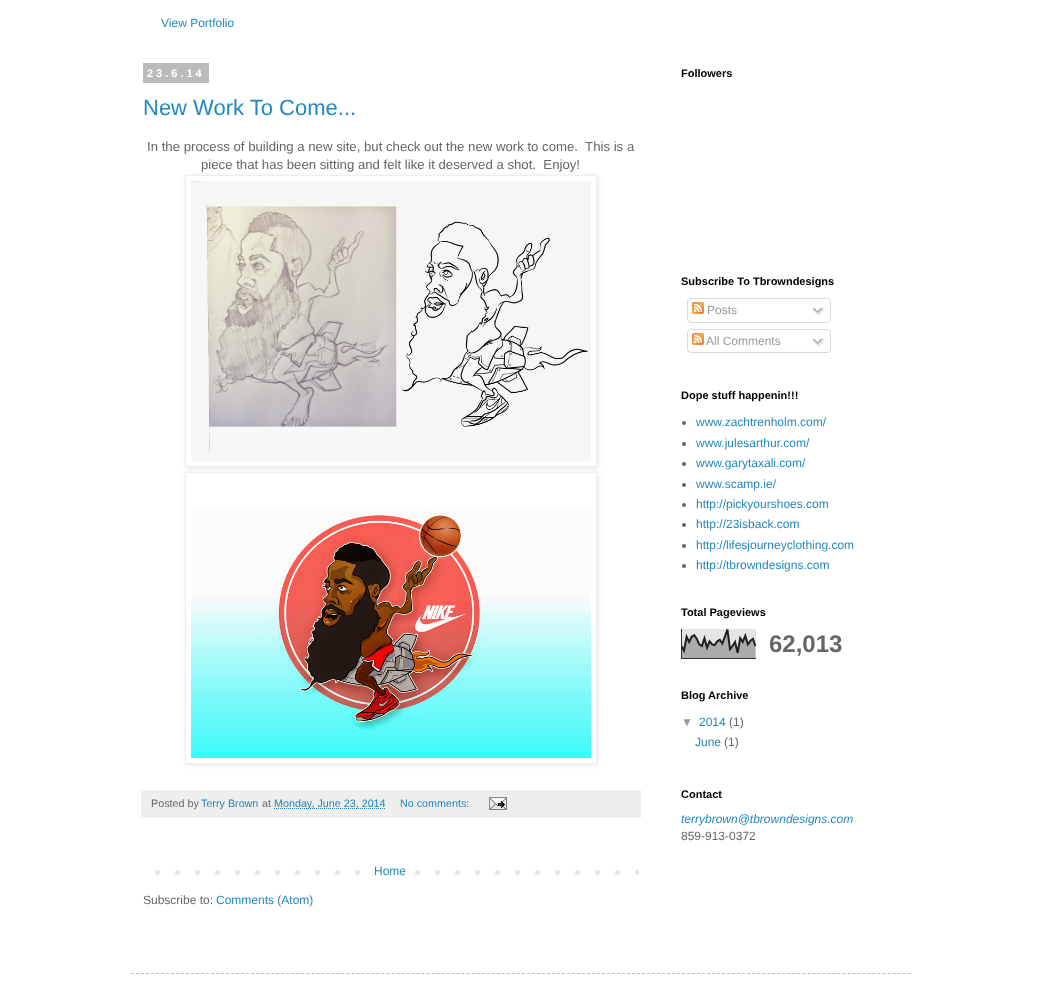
async function draw(canvas) {
  canvas.width = 1041;
  canvas.height = 996;
  const ctx = canvas.getContext('2d');
  ctx.miterLimit = 4;
  ctx.fontKerning = 'normal';
  function label(s, x, y, font, color) {
    ctx.font = font;
    ctx.fillStyle = color;
    ctx.fillText(s, x, y);
  }
  function rect(x, y, w, h, color) {
    ctx.fillStyle = color;
    ctx.fillRect(x, y, w, h);
  }
  async function image(src, x, y, w, h) {
    const img = new Image();
    img.src = src;
    await img.decode();
    ctx.drawImage(img, x, y, w, h);
  }
  let path;

  rect(0, 0, 1041, 996, '#fff');
  label('View Portfolio', 161, 27, '12px Liberation Sans', '#28b');
  rect(143, 63, 66, 20, '#bbb');
  ctx.letterSpacing = '3px';
  label('23.6.14', 147, 77, 'bold 11px Liberation Sans', '#fff');
  ctx.letterSpacing = '0px';
  label('New Work To Come...', 143, 115, '22px Liberation Sans', '#28b');
  label('In the process of building a new site, but check out the new work to come.  This is a', 147, 151, '13.2px Liberation Sans', '#666');
  label('piece that has been sitting and felt like it deserved a shot.  Enjoy!', 201, 169, '13.2px Liberation Sans', '#666');
  ctx.save();
  path = new Path2D('M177 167H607V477H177ZM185 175H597V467H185Z');
  ctx.clip(path, 'evenodd');
  ctx.fillStyle = '#0000001a';
  ctx.filter = 'blur(2.5px)';
  ctx.beginPath();
  ctx.rect(186, 176, 412, 292);
  ctx.fill();
  ctx.filter = 'none';
  ctx.restore();
  ctx.strokeStyle = '#eee';
  ctx.strokeRect(185.5, 175.5, 411, 291);
  await image('assets/img1.png', 191, 181, 400, 280);
  ctx.save();
  path = new Path2D('M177 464H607V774H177ZM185 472H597V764H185Z');
  ctx.clip(path, 'evenodd');
  ctx.fillStyle = '#0000001a';
  ctx.filter = 'blur(2.5px)';
  ctx.beginPath();
  ctx.rect(186, 473, 412, 292);
  ctx.fill();
  ctx.filter = 'none';
  ctx.restore();
  ctx.strokeRect(185.5, 472.5, 411, 291);
  await image('assets/img2.png', 191, 508, 400, 250);
  rect(141, 790, 500, 28, '#eee');
  label('Posted by', 151, 807, '10.75px Liberation Sans', '#666');
  label('Terry Brown', 201, 807, '10.75px Liberation Sans', '#28b');
  label('at', 262, 807, '10.75px Liberation Sans', '#666');
  path = new Path2D('M274 808.5H386');
  ctx.strokeStyle = '#28b';
  ctx.setLineDash([1, 1]);
  ctx.stroke(path);
  label('Monday, June 23, 2014', 274, 807, '10.75px Liberation Sans', '#28b');
  label('No comments:', 400, 807, '10.75px Liberation Sans', '#28b');
  await image('assets/img3.png', 489, 797, 18, 13);
  await image('assets/img4.png', 155, 870, 484, 5);
  rect(375, 870, 26, 5, '#fff');
  label('Home', 374, 875, '12px Liberation Sans', '#28b');
  label('Subscribe to:', 143, 904, '12px Liberation Sans', '#666');
  label('Comments (Atom)', 216, 904, '12px Liberation Sans', '#28b');
  label('Followers', 681, 77, 'bold 11px Liberation Sans', '#000');
  label('Subscribe To Tbrowndesigns', 681, 285, 'bold 11px Liberation Sans', '#000');
  await image('assets/img5.png', 687, 298, 144, 22);
  await image('assets/img6.png', 692, 302, 12, 12);
  label('Posts', 707, 314, '12px Liberation Sans', '#999');
  await image('assets/img7.png', 812, 307, 13, 9);
  await image('assets/img8.png', 687, 320, 144, 3);
  await image('assets/img9.png', 687, 329, 144, 21);
  await image('assets/img6.png', 692, 333, 12, 12);
  label('All Comments', 706, 345, '12px Liberation Sans', '#999');
  await image('assets/img7.png', 812, 338, 13, 9);
  await image('assets/img8.png', 687, 350, 144, 3);
  label('Dope stuff happenin!!!', 681, 399, 'bold 11px Liberation Sans', '#000');
  ctx.fillStyle = '#666';
  ctx.beginPath();
  ctx.arc(684, 423, 2, 0, 2 * Math.PI);
  ctx.fill();
  label('www.zachtrenholm.com/', 696, 426, '12px Liberation Sans', '#28b');
  ctx.fillStyle = '#666';
  ctx.beginPath();
  ctx.arc(684, 444, 2, 0, 2 * Math.PI);
  ctx.fill();
  label('www.julesarthur.com/', 696, 447, '12px Liberation Sans', '#28b');
  ctx.fillStyle = '#666';
  ctx.beginPath();
  ctx.arc(684, 464, 2, 0, 2 * Math.PI);
  ctx.fill();
  label('www.garytaxali.com/', 696, 467, '12px Liberation Sans', '#28b');
  ctx.fillStyle = '#666';
  ctx.beginPath();
  ctx.arc(684, 485, 2, 0, 2 * Math.PI);
  ctx.fill();
  label('www.scamp.ie/', 696, 488, '12px Liberation Sans', '#28b');
  ctx.fillStyle = '#666';
  ctx.beginPath();
  ctx.arc(684, 505, 2, 0, 2 * Math.PI);
  ctx.fill();
  label('http://pickyourshoes.com', 696, 508, '12px Liberation Sans', '#28b');
  ctx.fillStyle = '#666';
  ctx.beginPath();
  ctx.arc(684, 525, 2, 0, 2 * Math.PI);
  ctx.fill();
  label('http://23isback.com', 696, 528, '12px Liberation Sans', '#28b');
  ctx.fillStyle = '#666';
  ctx.beginPath();
  ctx.arc(684, 546, 2, 0, 2 * Math.PI);
  ctx.fill();
  label('http://lifesjourneyclothing.com', 696, 549, '12px Liberation Sans', '#28b');
  ctx.fillStyle = '#666';
  ctx.beginPath();
  ctx.arc(684, 566, 2, 0, 2 * Math.PI);
  ctx.fill();
  label('http://tbrowndesigns.com', 696, 569, '12px Liberation Sans', '#28b');
  label('Total Pageviews', 681, 616, 'bold 11px Liberation Sans', '#000');
  await image('assets/img10.png', 681, 629, 75, 30);
  label('62,013', 769, 652, 'bold 24px Liberation Sans', '#666');
  label('Blog Archive', 681, 699, 'bold 11px Liberation Sans', '#000');
  label('▼', 681, 726, '12px Liberation Sans', '#999');
  label('2014', 699, 726, '12px Liberation Sans', '#28b');
  label('(1)', 729, 726, '12px Liberation Sans', '#666');
  label('June', 695, 746, '12px Liberation Sans', '#28b');
  label('(1)', 724, 746, '12px Liberation Sans', '#666');
  label('Contact', 681, 798, 'bold 11px Liberation Sans', '#000');
  label('terrybrown@tbrowndesigns.com', 681, 823, 'italic 12px Liberation Sans', '#28b');
  label('859-913-0372', 681, 840, '12px Liberation Sans', '#666');
  path = new Path2D('M131 973.5H911');
  ctx.strokeStyle = '#bbb';
  ctx.setLineDash([3, 2.01]);
  ctx.stroke(path);
}

draw(document.querySelector('canvas'));
